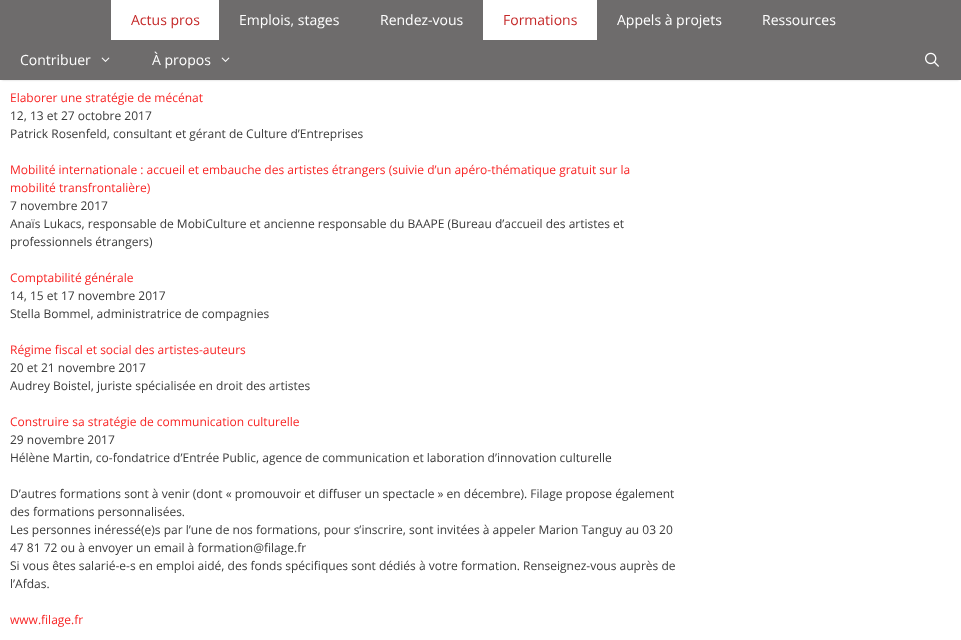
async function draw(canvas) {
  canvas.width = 961;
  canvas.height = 640;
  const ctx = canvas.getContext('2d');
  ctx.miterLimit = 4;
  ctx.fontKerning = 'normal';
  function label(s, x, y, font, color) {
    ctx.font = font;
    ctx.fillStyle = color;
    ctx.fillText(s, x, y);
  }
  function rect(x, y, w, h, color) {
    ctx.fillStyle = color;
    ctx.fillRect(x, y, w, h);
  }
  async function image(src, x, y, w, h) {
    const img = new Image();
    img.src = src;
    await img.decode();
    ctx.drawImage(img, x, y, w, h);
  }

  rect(0, 0, 961, 640, '#fff');
  ctx.fillStyle = '#00000033';
  ctx.filter = 'blur(1px)';
  ctx.beginPath();
  ctx.rect(2, 4, 957, 76);
  ctx.fill();
  ctx.filter = 'none';
  rect(0, 0, 961, 80, '#6e6c6c');
  rect(111, 0, 108, 40, '#fff');
  label('Actus pros', 131, 25, '14px Open Sans', '#c52929');
  label('Emplois, stages', 239, 25, '14px Open Sans', '#fff');
  label('Rendez-vous', 380, 25, '14px Open Sans', '#fff');
  rect(483, 0, 114, 40, '#fff');
  label('Formations', 503, 25, '14px Open Sans', '#c52929');
  label('Appels à projets', 617, 25, '14px Open Sans', '#fff');
  label('Ressources', 762, 25, '14px Open Sans', '#fff');
  label('Contribuer', 20, 65, '14px Open Sans', '#fff');
  await image('assets/img1.png', 101, 57, 9, 5);
  label('À propos', 152, 65, '14px Open Sans', '#fff');
  await image('assets/img1.png', 221, 57, 9, 5);
  await image('assets/img2.png', 925, 52, 14, 15);
  label('Elaborer une stratégie de mécénat', 10, 102, '12px Open Sans', '#f82525');
  label('12, 13 et 27 octobre 2017', 10, 120, '12px Open Sans', '#3a3a3a');
  label('Patrick Rosenfeld, consultant et gérant de Culture d’Entreprises', 10, 138, '12px Open Sans', '#3a3a3a');
  label('Mobilité internationale : accueil et embauche des artistes étrangers (suivie d’un apéro-thématique gratuit sur la', 10, 174, '12px Open Sans', '#f82525');
  label('mobilité transfrontalière)', 10, 192, '12px Open Sans', '#f82525');
  label('7 novembre 2017', 10, 210, '12px Open Sans', '#3a3a3a');
  label('Anaïs Lukacs, responsable de MobiCulture et ancienne responsable du BAAPE (Bureau d’accueil des artistes et', 10, 228, '12px Open Sans', '#3a3a3a');
  label('professionnels étrangers)', 10, 246, '12px Open Sans', '#3a3a3a');
  label('Comptabilité générale', 10, 282, '12px Open Sans', '#f82525');
  label('14, 15 et 17 novembre 2017', 10, 300, '12px Open Sans', '#3a3a3a');
  label('Stella Bommel, administratrice de compagnies', 10, 318, '12px Open Sans', '#3a3a3a');
  label('Régime fiscal et social des artistes-auteurs', 10, 354, '12px Open Sans', '#f82525');
  label('20 et 21 novembre 2017', 10, 372, '12px Open Sans', '#3a3a3a');
  label('Audrey Boistel, juriste spécialisée en droit des artistes', 10, 390, '12px Open Sans', '#3a3a3a');
  label('Construire sa stratégie de communication culturelle', 10, 426, '12px Open Sans', '#f82525');
  label('29 novembre 2017', 10, 444, '12px Open Sans', '#3a3a3a');
  label('Hélène Martin, co-fondatrice d’Entrée Public, agence de communication et laboration d’innovation culturelle', 10, 462, '12px Open Sans', '#3a3a3a');
  label('D’autres formations sont à venir (dont « promouvoir et diffuser un spectacle » en décembre). Filage propose également', 10, 498, '12px Open Sans', '#3a3a3a');
  label('des formations personnalisées.', 10, 516, '12px Open Sans', '#3a3a3a');
  label('Les personnes inéressé(e)s par l’une de nos formations, pour s’inscrire, sont invitées à appeler Marion Tanguy au 03 20', 10, 534, '12px Open Sans', '#3a3a3a');
  label('47 81 72 ou à envoyer un email à formation@filage.fr', 10, 552, '12px Open Sans', '#3a3a3a');
  label('Si vous êtes salarié-e-s en emploi aidé, des fonds spécifiques sont dédiés à votre formation. Renseignez-vous auprès de', 10, 570, '12px Open Sans', '#3a3a3a');
  label('l’Afdas.', 10, 588, '12px Open Sans', '#3a3a3a');
  label('www.filage.fr', 10, 624, '12px Open Sans', '#f82525');
}

draw(document.querySelector('canvas'));
